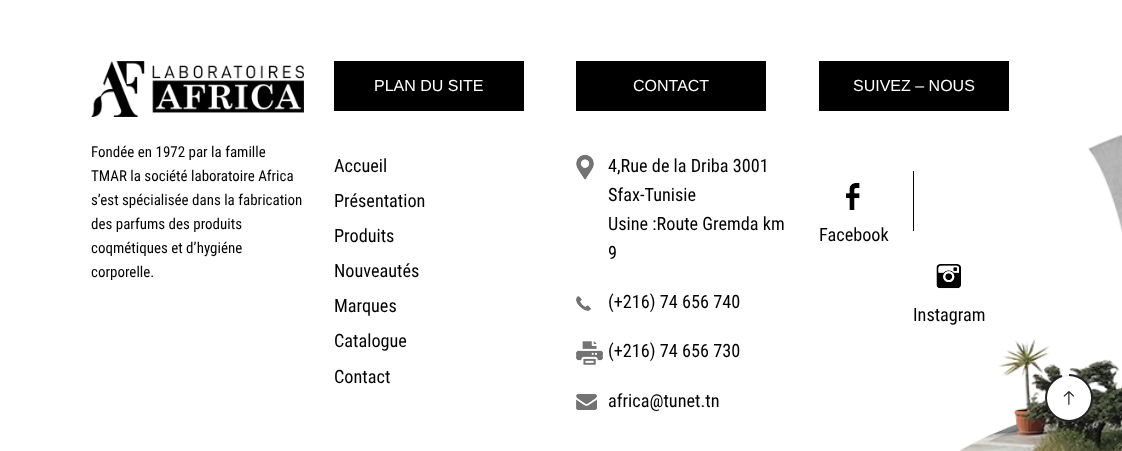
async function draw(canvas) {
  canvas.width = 1122;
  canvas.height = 451;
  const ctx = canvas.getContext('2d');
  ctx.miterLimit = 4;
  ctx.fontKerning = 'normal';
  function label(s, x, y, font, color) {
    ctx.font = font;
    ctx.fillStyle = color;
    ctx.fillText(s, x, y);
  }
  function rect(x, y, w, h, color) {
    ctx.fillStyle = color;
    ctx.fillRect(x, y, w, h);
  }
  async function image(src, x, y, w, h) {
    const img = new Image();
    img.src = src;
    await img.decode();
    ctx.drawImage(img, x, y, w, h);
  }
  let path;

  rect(0, 0, 1122, 451, '#fff');
  await image('assets/img1.png', 960, 134, 162, 317);
  await image('assets/img2.png', 91, 61, 213, 56);
  label('Fondée en 1972 par la famille', 91, 157, '15px Roboto Condensed', '#000');
  label('TMAR la société laboratoire Africa', 91, 181, '15px Roboto Condensed', '#000');
  label('s’est spécialisée dans la fabrication', 91, 205, '15px Roboto Condensed', '#000');
  label('des parfums des produits', 91, 229, '15px Roboto Condensed', '#000');
  label('coqmétiques et d’hygiéne', 91, 253, '15px Roboto Condensed', '#000');
  label('corporelle.', 91, 277, '15px Roboto Condensed', '#000');
  rect(334, 61, 190, 50, '#000');
  label('PLAN DU SITE', 374, 91, '16px Liberation Sans', '#fff');
  label('Accueil', 334, 172, '18.25px Roboto Condensed', '#000');
  label('Présentation', 334, 207, '18.25px Roboto Condensed', '#000');
  label('Produits', 334, 242, '18.25px Roboto Condensed', '#000');
  label('Nouveautés', 334, 277, '18.25px Roboto Condensed', '#000');
  label('Marques', 334, 312, '18.25px Roboto Condensed', '#000');
  label('Catalogue', 334, 347, '18.25px Roboto Condensed', '#000');
  label('Contact', 334, 383, '18.25px Roboto Condensed', '#000');
  rect(576, 61, 190, 50, '#000');
  label('CONTACT', 633, 91, '16px Liberation Sans', '#fff');
  await image('assets/img3.png', 576, 154, 18, 26);
  label('4,Rue de la Driba 3001', 608, 172, '18.25px Roboto Condensed', '#000');
  label('Sfax-Tunisie', 608, 201, '18.25px Roboto Condensed', '#000');
  label('Usine :Route Gremda km', 608, 230, '18.25px Roboto Condensed', '#000');
  label('9', 608, 259, '18.25px Roboto Condensed', '#000');
  await image('assets/img4.png', 576, 296, 15, 15);
  label('(+216) 74 656 740', 608, 308, '18.25px Roboto Condensed', '#000');
  await image('assets/img5.png', 576, 341, 27, 24);
  label('(+216) 74 656 730', 608, 357, '18.25px Roboto Condensed', '#000');
  await image('assets/img6.png', 576, 394, 21, 16);
  label('africa@tunet.tn', 608, 407, '18.25px Roboto Condensed', '#000');
  rect(819, 61, 190, 50, '#000');
  label('SUIVEZ – NOUS', 853, 91, '16px Liberation Sans', '#fff');
  rect(913, 171, 1, 60, '#000');
  await image('assets/img7.png', 846, 183, 14, 27);
  label('Facebook', 819, 241, '18.25px Roboto Condensed', '#000');
  await image('assets/img8.png', 936, 264, 25, 25);
  label('Instagram', 913, 321, '18.25px Roboto Condensed', '#000');
  ctx.fillStyle = '#fff';
  ctx.beginPath();
  ctx.arc(1069, 398, 22.5, 0, 2 * Math.PI);
  ctx.fill();
  ctx.strokeStyle = '#e7e7e7';
  ctx.stroke();
  path = new Path2D('M1069 375C1081.5 375 1092 385.5 1092 398C1092 410.5 1081.5 421 1069 421C1056.5 421 1046 410.5 1046 398C1046 387.5 1053 379 1062 376');
  ctx.strokeStyle = '#222';
  ctx.lineWidth = 1.9;
  ctx.stroke(path);
  await image('assets/img9.png', 1063, 391, 12, 14);
}

draw(document.querySelector('canvas'));
